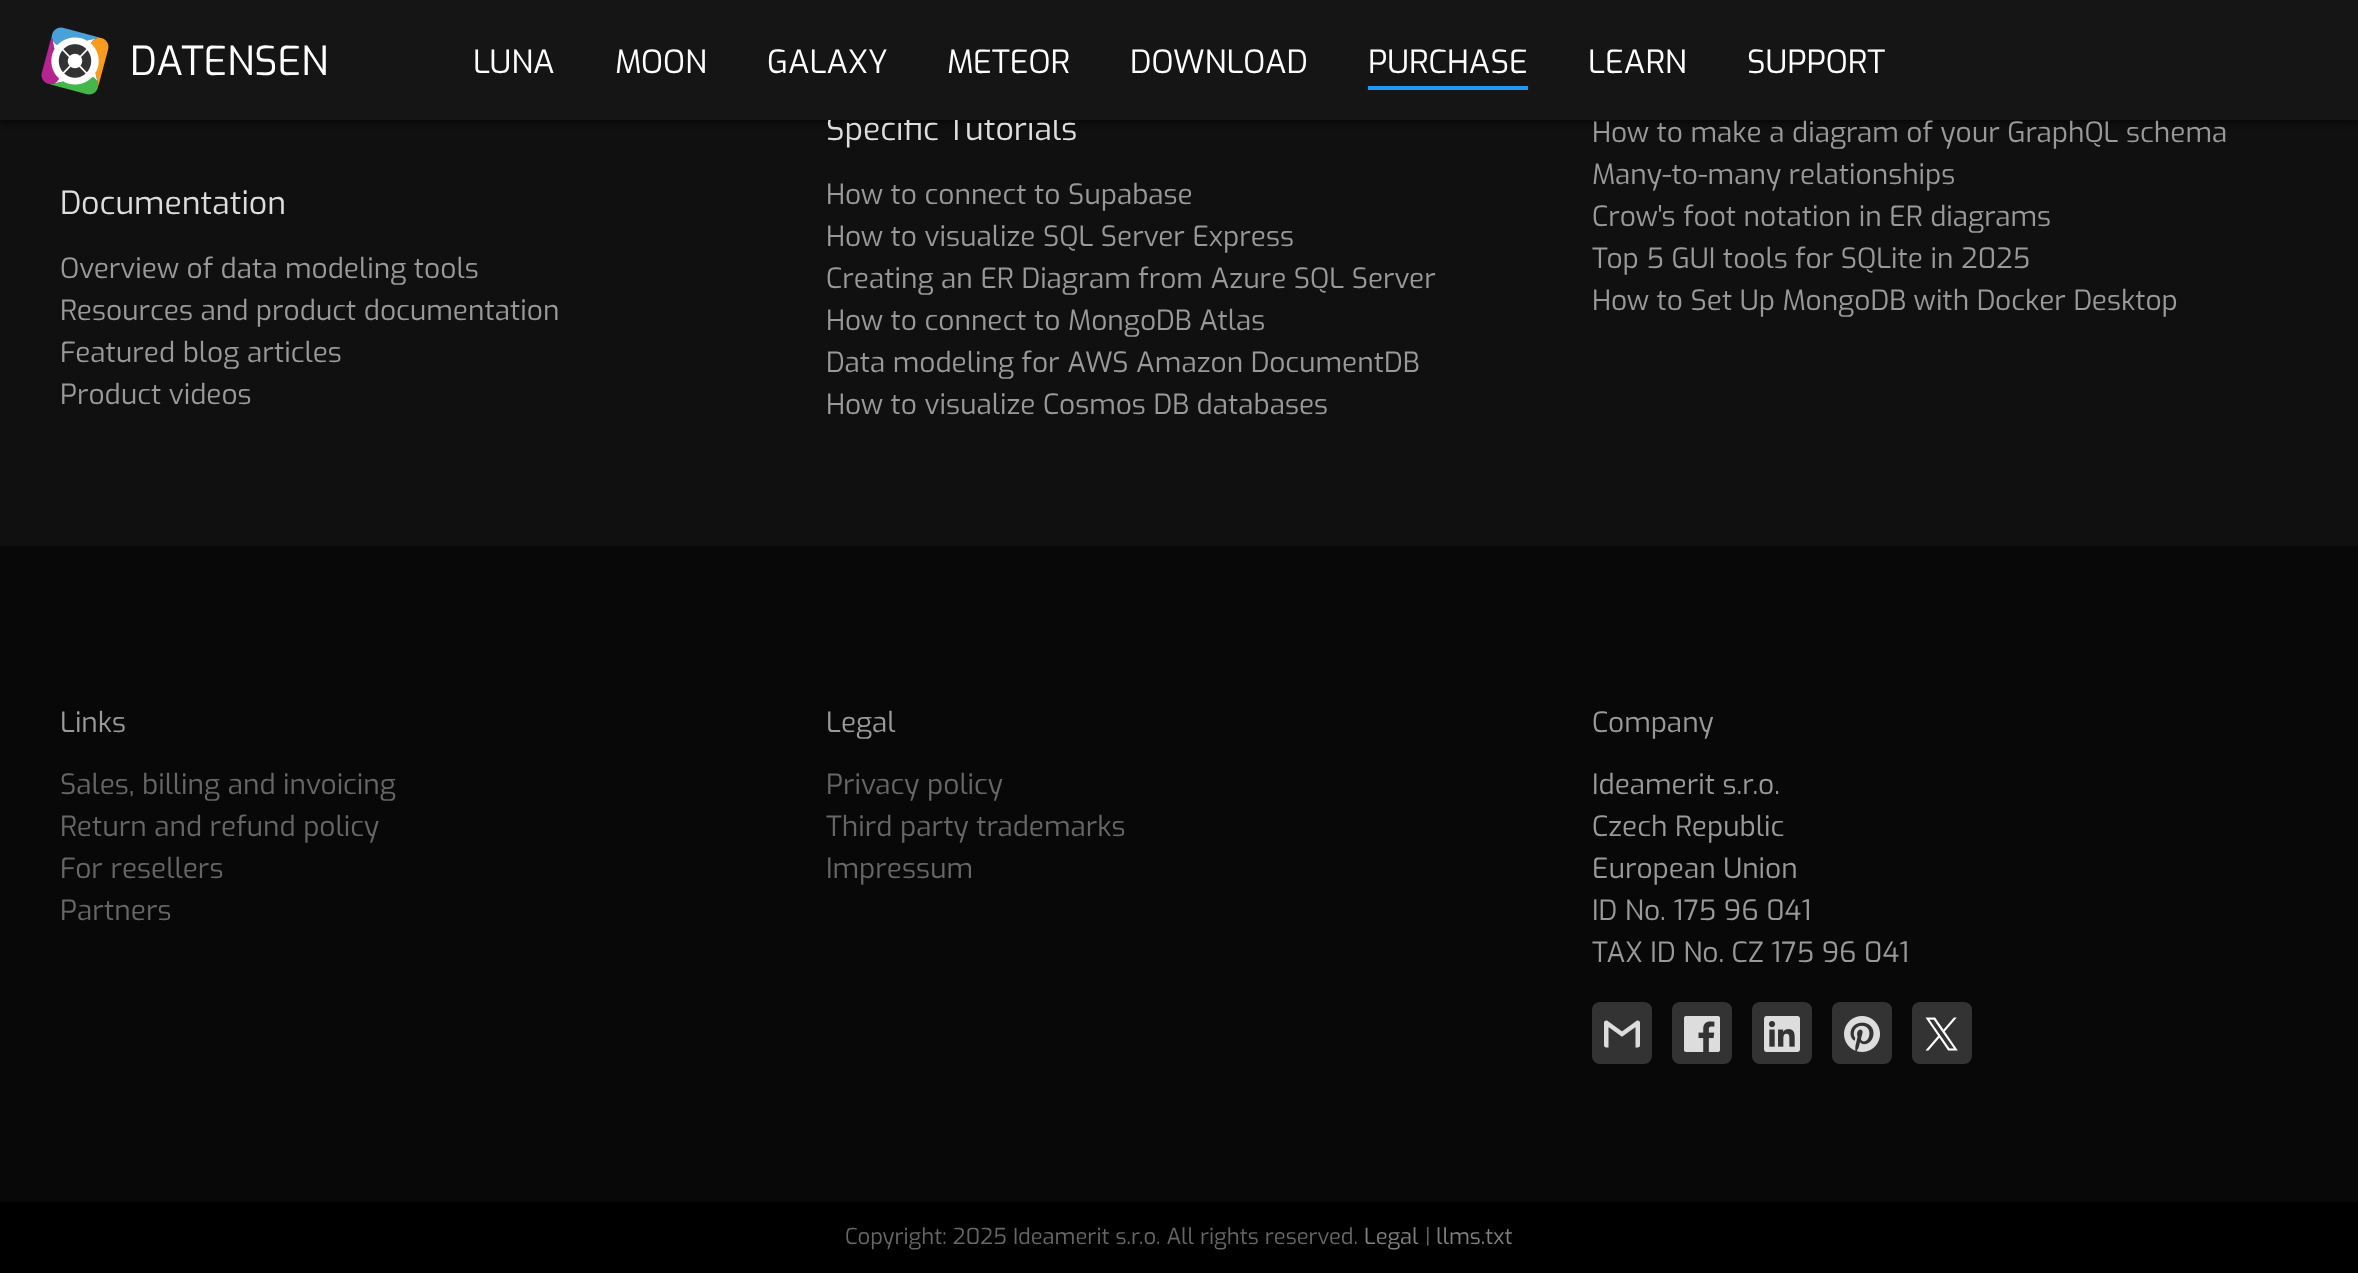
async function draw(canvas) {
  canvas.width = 2358;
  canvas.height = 1273;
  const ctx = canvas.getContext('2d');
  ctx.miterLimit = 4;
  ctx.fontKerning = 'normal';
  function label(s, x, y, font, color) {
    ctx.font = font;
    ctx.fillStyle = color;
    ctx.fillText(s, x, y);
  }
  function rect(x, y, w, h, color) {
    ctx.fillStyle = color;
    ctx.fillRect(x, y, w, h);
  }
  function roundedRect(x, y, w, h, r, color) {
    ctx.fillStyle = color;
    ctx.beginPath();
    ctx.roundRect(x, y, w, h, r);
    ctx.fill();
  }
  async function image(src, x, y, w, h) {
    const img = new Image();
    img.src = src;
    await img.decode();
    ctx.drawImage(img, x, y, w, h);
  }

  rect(0, 0, 2358, 1273, '#101010');
  ctx.fillStyle = '#000';
  ctx.filter = 'blur(5px)';
  ctx.beginPath();
  ctx.rect(0, 0, 2358, 120);
  ctx.fill();
  ctx.filter = 'none';
  label('Specific Tutorials', 826, 140, '32px Exo', '#ddd');
  rect(0, 0, 2358, 120, '#151515');
  await image('assets/img1.png', 41, 27, 68, 68);
  label('DATENSEN', 130, 75, '40px Exo', '#fff');
  label('LUNA', 473, 73, '32px Exo', '#fff');
  label('MOON', 615, 73, '32px Exo', '#fff');
  label('GALAXY', 767, 73, '32px Exo', '#fff');
  label('METEOR', 947, 73, '32px Exo', '#fff');
  label('DOWNLOAD', 1130, 73, '32px Exo', '#fff');
  label('PURCHASE', 1368, 73, '32px Exo', '#fff');
  rect(1368, 86, 160, 4, '#2196f3');
  label('LEARN', 1588, 73, '32px Exo', '#fff');
  label('SUPPORT', 1747, 73, '32px Exo', '#fff');
  label('Documentation', 60, 214, '32px Exo', '#ddd');
  label('Overview of data modeling tools', 60, 278, '28px Exo', '#999');
  label('Resources and product documentation', 60, 320, '28px Exo', '#999');
  label('Featured blog articles', 60, 362, '28px Exo', '#999');
  label('Product videos', 60, 404, '28px Exo', '#999');
  label('How to connect to Supabase', 826, 204, '28px Exo', '#999');
  label('How to visualize SQL Server Express', 826, 246, '28px Exo', '#999');
  label('Creating an ER Diagram from Azure SQL Server', 826, 288, '28px Exo', '#999');
  label('How to connect to MongoDB Atlas', 826, 330, '28px Exo', '#999');
  label('Data modeling for AWS Amazon DocumentDB', 826, 372, '28px Exo', '#999');
  label('How to visualize Cosmos DB databases', 826, 414, '28px Exo', '#999');
  label('How to make a diagram of your GraphQL schema', 1592, 142, '28px Exo', '#999');
  label('Many-to-many relationships', 1592, 184, '28px Exo', '#999');
  label('Crow\'s foot notation in ER diagrams', 1592, 226, '28px Exo', '#999');
  label('Top 5 GUI tools for SQLite in 2025', 1592, 268, '28px Exo', '#999');
  label('How to Set Up MongoDB with Docker Desktop', 1592, 310, '28px Exo', '#999');
  rect(0, 546, 2358, 656, '#080808');
  label('Links', 60, 732, '28px Exo', '#999');
  label('Sales, billing and invoicing', 60, 794, '28px Exo', '#666');
  label('Return and refund policy', 60, 836, '28px Exo', '#666');
  label('For resellers', 60, 878, '28px Exo', '#666');
  label('Partners', 60, 920, '28px Exo', '#666');
  label('Legal', 826, 732, '28px Exo', '#999');
  label('Privacy policy', 826, 794, '28px Exo', '#666');
  label('Third party trademarks', 826, 836, '28px Exo', '#666');
  label('Impressum', 826, 878, '28px Exo', '#666');
  label('Company', 1592, 732, '28px Exo', '#999');
  label('Ideamerit s.r.o.', 1592, 794, '28px Exo', '#999');
  label('Czech Republic', 1592, 836, '28px Exo', '#999');
  label('European Union', 1592, 878, '28px Exo', '#999');
  label('ID No. 175 96 041', 1592, 920, '28px Exo', '#999');
  label('TAX ID No. CZ 175 96 041', 1592, 962, '28px Exo', '#999');
  roundedRect(1592, 1002, 60, 62, 8, '#333');
  await image('assets/img2.png', 1604, 1020, 36, 28);
  roundedRect(1672, 1002, 60, 62, 8, '#333');
  await image('assets/img3.png', 1684, 1016, 36, 36);
  roundedRect(1752, 1002, 60, 62, 8, '#333');
  await image('assets/img4.png', 1764, 1016, 36, 36);
  roundedRect(1832, 1002, 60, 62, 8, '#333');
  await image('assets/img5.png', 1844, 1016, 36, 36);
  roundedRect(1912, 1002, 60, 62, 8, '#333');
  await image('assets/img6.png', 1925, 1017, 33, 34);
  rect(0, 1202, 2358, 71, '#000');
  label('Copyright: 2025 Ideamerit s.r.o. All rights reserved.', 845, 1244, '22px Exo', '#666');
  label('Legal', 1364, 1244, '22px Exo', '#808080');
  label('|', 1425, 1244, '22px Exo', '#666');
  label('llms.txt', 1436, 1244, '22px Exo', '#808080');
}

draw(document.querySelector('canvas'));
